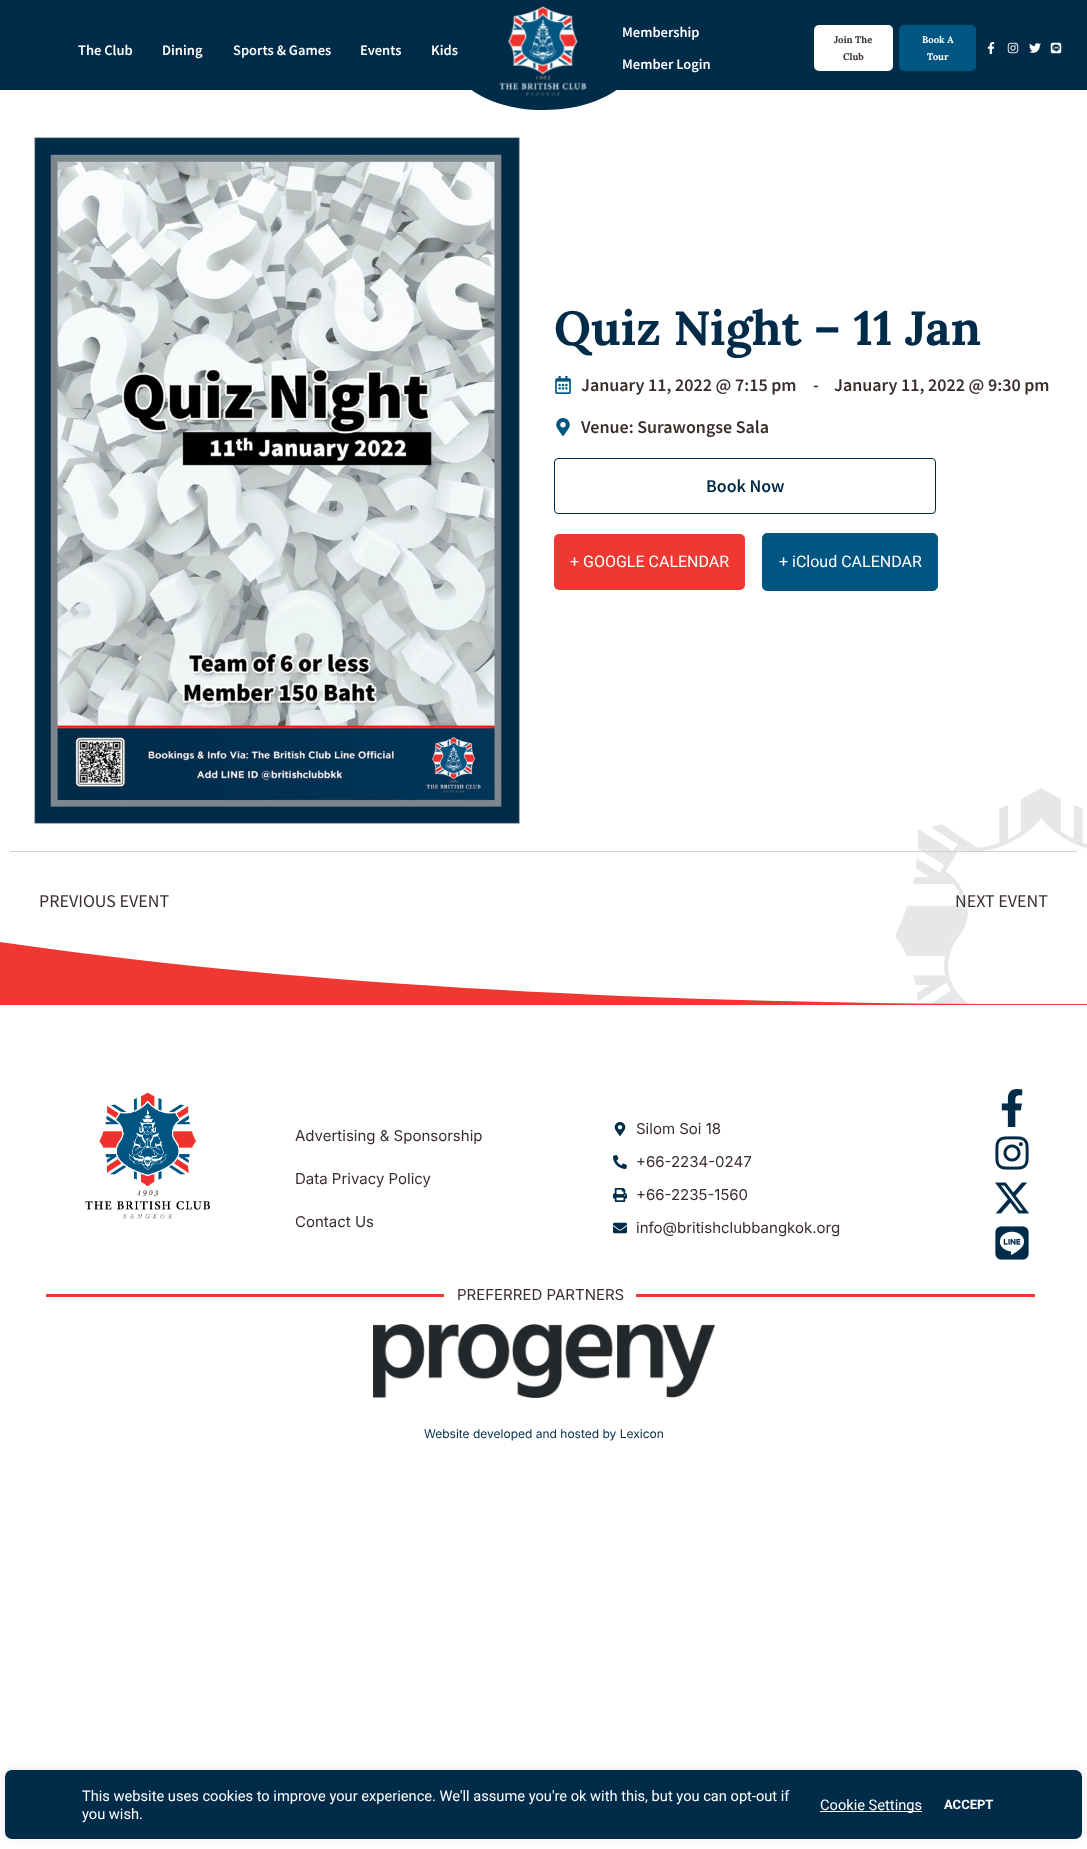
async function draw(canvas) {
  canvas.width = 1087;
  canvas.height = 1849;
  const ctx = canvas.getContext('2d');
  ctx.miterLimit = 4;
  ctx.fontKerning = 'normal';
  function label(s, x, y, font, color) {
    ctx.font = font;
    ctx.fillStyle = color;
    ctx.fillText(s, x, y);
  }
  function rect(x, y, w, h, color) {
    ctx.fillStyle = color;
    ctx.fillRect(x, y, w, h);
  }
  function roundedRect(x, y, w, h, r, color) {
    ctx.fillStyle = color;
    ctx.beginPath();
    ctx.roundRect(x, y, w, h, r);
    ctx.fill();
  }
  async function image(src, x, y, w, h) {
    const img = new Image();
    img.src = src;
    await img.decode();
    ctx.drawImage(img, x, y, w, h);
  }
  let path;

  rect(0, 0, 1087, 1849, '#fff');
  rect(0, 0, 1087, 90, '#002b49');
  label('The Club', 78, 55, '600 14.5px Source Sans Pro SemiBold', '#fff');
  label('Dining', 162, 55, '600 14.5px Source Sans Pro SemiBold', '#fff');
  label('Sports & Games', 233, 55, '600 14.5px Source Sans Pro SemiBold', '#fff');
  label('Events', 360, 55, '600 14.5px Source Sans Pro SemiBold', '#fff');
  ctx.save();
  ctx.beginPath();
  ctx.rect(444, 50, 200, 60);
  ctx.clip();
  ctx.fillStyle = '#002b49';
  path = new Path2D('M645 53V50H443V53C444 64 469 110 544 110C619 110 645 64 645 53Z');
  ctx.fill(path);
  ctx.restore();
  label('Kids', 431, 55, '600 14.5px Source Sans Pro SemiBold', '#fff');
  await image('assets/img1.png', 499, 6, 88, 90);
  label('Membership', 622, 37, '600 14.5px Source Sans Pro SemiBold', '#fff');
  label('Member Login', 622, 69, '600 14.5px Source Sans Pro SemiBold', '#fff');
  roundedRect(814, 25, 79, 46, 5, '#fff');
  label('Join The', 834, 43, 'bold 9.5px Lora', '#382e2c');
  label('Club', 843, 60, 'bold 9.5px Lora', '#382e2c');
  roundedRect(899, 25, 77, 46, 5, '#005683');
  label('Book A', 922, 43, 'bold 9.5px Lora', '#fff');
  label('Tour', 927, 60, 'bold 9.5px Lora', '#fff');
  await image('assets/img2.png', 987, 42, 8, 12);
  await image('assets/img3.png', 1007, 42, 12, 12);
  await image('assets/img4.png', 1029, 43, 12, 10);
  await image('assets/img5.png', 1050, 42, 12, 12);
  rect(0, 942, 1087, 63, '#ee3831');
  ctx.fillStyle = '#fff';
  path = new Path2D('M0 785H1087V1004H1022C625 1004 264 981 0 942Z');
  ctx.fill(path);
  await image('assets/img6.png', 34, 137, 486, 687);
  label('Quiz Night – 11 Jan', 554, 345, 'bold 48px Lora', '#002b49');
  await image('assets/img7.png', 555, 376, 16, 18);
  label('January 11, 2022 @ 7:15 pm', 581, 391, '600 18px Source Sans Pro SemiBold', '#382e2c');
  label('-', 813, 391, '600 18px Source Sans Pro SemiBold', '#382e2c');
  label('January 11, 2022 @ 9:30 pm', 834, 391, '600 18px Source Sans Pro SemiBold', '#382e2c');
  await image('assets/img8.png', 556, 418, 14, 18);
  label('Venue: Surawongse Sala', 581, 433, '600 18px Source Sans Pro SemiBold', '#382e2c');
  ctx.beginPath();
  ctx.roundRect(554.5, 458.5, 381, 55, 3.5);
  ctx.strokeStyle = '#002b49';
  ctx.stroke();
  label('Book Now', 706, 492, '600 18px Source Sans Pro SemiBold', '#002b49');
  roundedRect(554, 534, 191, 56, 5, '#ee3831');
  label('+ GOOGLE CALENDAR', 570, 567, '16px Roboto', '#fff');
  ctx.fillStyle = '#005683';
  ctx.beginPath();
  ctx.roundRect(762.5, 533.5, 175, 57, 4.5);
  ctx.fill();
  ctx.strokeStyle = '#005683';
  ctx.stroke();
  label('+ iCloud CALENDAR', 779, 567, '16px Roboto', '#fff');
  await image('assets/img9.png', 896, 788, 191, 216);
  rect(10, 851, 1067, 1, '#d0d3d4');
  label('PREVIOUS EVENT', 39, 907, '18px Source Sans Pro', '#382e2c');
  label('NEXT EVENT', 955, 907, '18px Source Sans Pro', '#382e2c');
  await image('assets/img10.png', 85, 1092, 125, 127);
  label('Advertising & Sponsorship', 295, 1141, '15px Inter', '#382e2c');
  label('Data Privacy Policy', 295, 1184, '15px Inter', '#382e2c');
  label('Contact Us', 295, 1227, '15px Inter', '#382e2c');
  await image('assets/img11.png', 614, 1122, 12, 14);
  label('Silom Soi 18', 636, 1134, '15px Inter', '#382e2c');
  await image('assets/img12.png', 613, 1155, 14, 14);
  label('+66-2234-0247', 636, 1167, '15px Inter', '#382e2c');
  await image('assets/img13.png', 613, 1188, 14, 14);
  label('+66-2235-1560', 636, 1200, '15px Inter', '#382e2c');
  await image('assets/img14.png', 613, 1222, 14, 12);
  label('info@britishclubbangkok.org', 636, 1233, '15px Inter', '#382e2c');
  await image('assets/img15.png', 1001, 1089, 22, 38);
  await image('assets/img16.png', 995, 1136, 34, 34);
  await image('assets/img17.png', 995, 1182, 34, 32);
  await image('assets/img18.png', 995, 1226, 34, 34);
  rect(46, 1294, 398, 3, '#ee3831');
  label('PREFERRED PARTNERS', 457, 1300, '15px Inter', '#382e2c');
  rect(636, 1294, 399, 3, '#ee3831');
  await image('assets/img19.png', 373, 1324, 342, 74);
  label('Website developed and hosted by Lexicon', 424, 1438, '12px Inter', '#002b49');
  ctx.fillStyle = '#acabab4d';
  ctx.filter = 'blur(5px)';
  ctx.beginPath();
  ctx.roundRect(5, 1769, 1077, 69, 7);
  ctx.fill();
  ctx.filter = 'none';
  roundedRect(5, 1770, 1077, 69, 7, '#002b49');
  label('This website uses cookies to improve your experience. We\'ll assume you\'re ok with this, but you can opt-out if', 82, 1801, '14.65px Roboto', '#fff');
  label('you wish.', 82, 1819, '14.65px Roboto', '#fff');
  rect(820, 1811, 102, 1, '#fff');
  label('Cookie Settings', 820, 1810, '14.65px Roboto', '#fff');
  label('ACCEPT', 944, 1809, 'bold 13px Roboto', '#fff');
}

draw(document.querySelector('canvas'));
